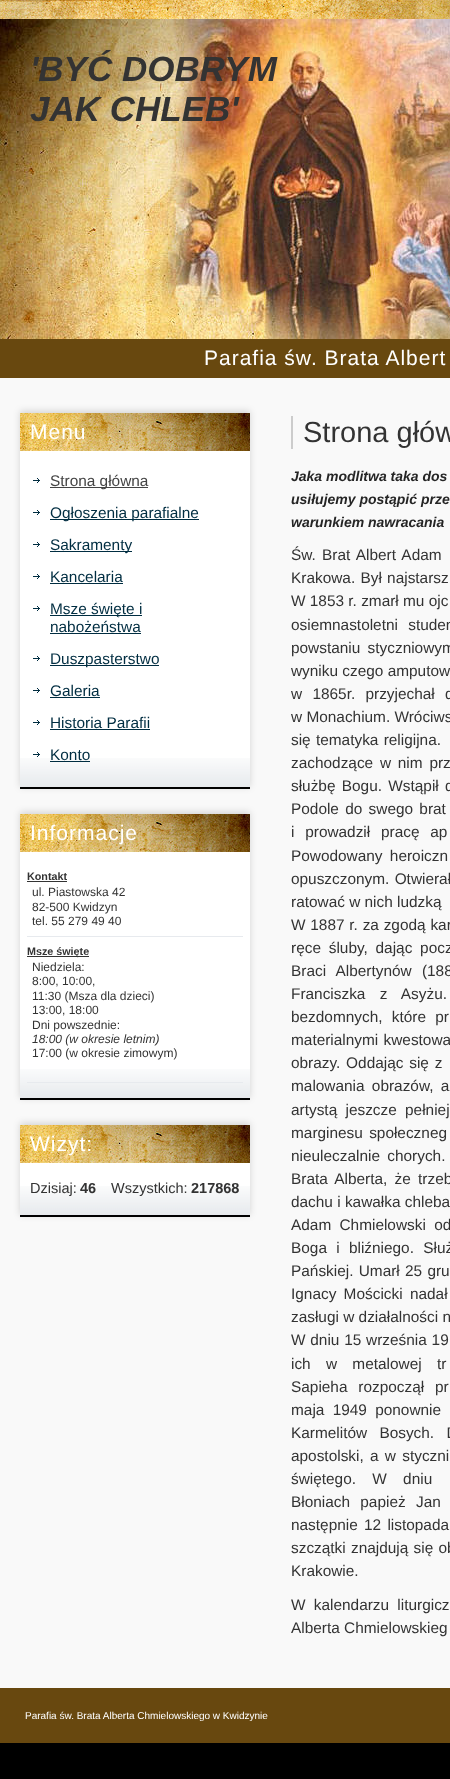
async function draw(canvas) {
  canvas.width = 450;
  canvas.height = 1779;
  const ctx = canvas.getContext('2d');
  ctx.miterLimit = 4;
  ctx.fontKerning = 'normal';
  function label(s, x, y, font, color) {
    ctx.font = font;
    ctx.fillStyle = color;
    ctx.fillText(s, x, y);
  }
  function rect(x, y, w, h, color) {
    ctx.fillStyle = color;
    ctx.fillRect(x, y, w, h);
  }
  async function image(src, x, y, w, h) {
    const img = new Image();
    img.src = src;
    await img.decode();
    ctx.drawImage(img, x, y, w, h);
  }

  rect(0, 0, 450, 1779, '#000');
  await image('assets/img1.png', 0, 0, 450, 19);
  await image('assets/img2.png', 0, 19, 450, 320);
  label('\'BYĆ DOBRYM', 30, 81, 'italic bold 35px Liberation Sans', '#333');
  label('JAK CHLEB\'', 30, 121, 'italic bold 35px Liberation Sans', '#333');
  rect(0, 339, 450, 39, '#68480f');
  ctx.letterSpacing = '1px';
  label('Parafia św. Brata Albert', 204, 365, '21px Liberation Sans', '#fff');
  rect(0, 378, 450, 1310, '#f9f9f9');
  ctx.fillStyle = '#00000026';
  ctx.filter = 'blur(3.5px)';
  ctx.beginPath();
  ctx.rect(20, 411, 230, 376);
  ctx.fill();
  ctx.filter = 'none';
  await image('assets/img3.png', 20, 413, 230, 38);
  label('Menu', 30, 439, '21px Liberation Sans', '#fff');
  rect(20, 451, 230, 307, '#fff');
  await image('assets/img4.png', 20, 758, 230, 29);
  rect(20, 787, 230, 2, '#000');
  await image('assets/img5.png', 33, 478, 7, 5);
  rect(50, 487, 98, 1, '#444');
  ctx.letterSpacing = '0px';
  label('Strona główna', 50, 486, '15.4px Liberation Sans', '#444');
  await image('assets/img5.png', 33, 510, 7, 5);
  rect(50, 519, 149, 1, '#002d41');
  label('Ogłoszenia parafialne', 50, 518, '15.4px Liberation Sans', '#002d41');
  await image('assets/img5.png', 33, 542, 7, 5);
  rect(50, 551, 82, 1, '#002d41');
  label('Sakramenty', 50, 550, '15.4px Liberation Sans', '#002d41');
  await image('assets/img5.png', 33, 574, 7, 5);
  label('Kancelaria', 50, 582, '15.4px Liberation Sans', '#002d41');
  rect(50, 583, 73, 1, '#002d41');
  await image('assets/img5.png', 33, 606, 7, 5);
  rect(50, 615, 92, 1, '#002d41');
  label('Msze święte i', 50, 614, '15.4px Liberation Sans', '#002d41');
  label('nabożeństwa', 50, 632, '15.4px Liberation Sans', '#002d41');
  rect(50, 633, 91, 1, '#002d41');
  await image('assets/img5.png', 33, 656, 7, 5);
  rect(50, 665, 109, 1, '#002d41');
  label('Duszpasterstwo', 50, 664, '15.4px Liberation Sans', '#002d41');
  await image('assets/img5.png', 33, 688, 7, 5);
  label('Galeria', 50, 696, '15.4px Liberation Sans', '#002d41');
  rect(50, 697, 50, 1, '#002d41');
  await image('assets/img5.png', 33, 720, 7, 5);
  label('Historia Parafii', 50, 728, '15.4px Liberation Sans', '#002d41');
  rect(50, 729, 100, 1, '#002d41');
  await image('assets/img5.png', 33, 752, 7, 5);
  label('Konto', 50, 760, '15.4px Liberation Sans', '#002d41');
  rect(50, 761, 40, 1, '#002d41');
  ctx.fillStyle = '#00000026';
  ctx.filter = 'blur(3.5px)';
  ctx.beginPath();
  ctx.rect(20, 812, 230, 286);
  ctx.fill();
  ctx.filter = 'none';
  await image('assets/img3.png', 20, 814, 230, 38);
  ctx.letterSpacing = '1px';
  label('Informacje', 30, 840, '21px Liberation Sans', '#fff');
  rect(20, 852, 230, 217, '#fff');
  await image('assets/img4.png', 20, 1069, 230, 29);
  rect(20, 1098, 230, 2, '#000');
  rect(27, 936, 216, 1, '#e7eaee');
  ctx.letterSpacing = '0px';
  label('Kontakt', 27, 880, 'bold 10.75px Liberation Sans', '#333');
  rect(27, 881, 40, 1, '#333');
  label('ul. Piastowska 42', 32, 896, '12px Liberation Sans', '#333');
  label('82-500 Kwidzyn', 32, 911, '12px Liberation Sans', '#333');
  label('tel. 55 279 49 40', 32, 925, '12px Liberation Sans', '#333');
  rect(27, 1082, 216, 1, '#e7eaee');
  rect(27, 956, 62, 1, '#333');
  label('Msze święte', 27, 955, 'bold 10.75px Liberation Sans', '#333');
  label('Niedziela:', 32, 971, '12px Liberation Sans', '#333');
  label('8:00, 10:00,', 32, 985, '12px Liberation Sans', '#333');
  label('11:30 (Msza dla dzieci)', 32, 1000, '12px Liberation Sans', '#333');
  label('13:00, 18:00', 32, 1014, '12px Liberation Sans', '#333');
  label('Dni powszednie:', 32, 1029, '12px Liberation Sans', '#333');
  label('18:00 (w okresie letnim)', 32, 1043, 'italic 12px Liberation Sans', '#333');
  label('17:00 (w okresie zimowym)', 32, 1057, '12px Liberation Sans', '#333');
  ctx.fillStyle = '#00000026';
  ctx.filter = 'blur(3.5px)';
  ctx.beginPath();
  ctx.rect(20, 1123, 230, 92);
  ctx.fill();
  ctx.filter = 'none';
  await image('assets/img3.png', 20, 1125, 230, 38);
  ctx.letterSpacing = '1px';
  label('Wizyt:', 30, 1151, '21px Liberation Sans', '#fff');
  rect(20, 1163, 230, 23, '#fff');
  await image('assets/img4.png', 20, 1186, 230, 29);
  rect(20, 1215, 230, 2, '#000');
  ctx.letterSpacing = '0px';
  label('Dzisiaj:', 30, 1193, '14.5px Liberation Sans', '#333');
  label('46', 80, 1193, 'bold 14.5px Liberation Sans', '#333');
  label('Wszystkich:', 111, 1193, '14.5px Liberation Sans', '#333');
  label('217868', 191, 1193, 'bold 14.5px Liberation Sans', '#333');
  rect(291, 416, 2, 33, '#ccc');
  label('Strona głów', 303, 442, '29px Liberation Sans', '#333');
  label('Jaka modlitwa taka dos', 291, 481, 'italic bold 14px Liberation Sans', '#252525');
  label('usiłujemy postąpić prze', 291, 504, 'italic bold 14px Liberation Sans', '#252525');
  label('warunkiem nawracania', 291, 527, 'italic bold 14px Liberation Sans', '#252525');
  ctx.wordSpacing = '2px';
  label('Św. Brat Albert Adam', 291, 560, '15.4px Liberation Sans', '#333');
  ctx.wordSpacing = '1px';
  label('Krakowa. Był najstarsz', 291, 583, '15.4px Liberation Sans', '#333');
  ctx.wordSpacing = '0px';
  label('W 1853 r. zmarł mu ojc', 291, 606, '15.4px Liberation Sans', '#333');
  ctx.wordSpacing = '6px';
  label('osiemnastoletni studen', 291, 630, '15.4px Liberation Sans', '#333');
  ctx.wordSpacing = '3px';
  label('powstaniu styczniowym', 291, 653, '15.4px Liberation Sans', '#333');
  ctx.wordSpacing = '0px';
  label('wyniku czego amputow', 291, 676, '15.4px Liberation Sans', '#333');
  ctx.wordSpacing = '6px';
  label('w 1865r. przyjechał d', 291, 699, '15.4px Liberation Sans', '#333');
  ctx.wordSpacing = '0px';
  label('w Monachium. Wróciws', 291, 722, '15.4px Liberation Sans', '#333');
  ctx.wordSpacing = '1px';
  label('się tematyka religijna.', 291, 745, '15.4px Liberation Sans', '#333');
  ctx.wordSpacing = '2.5px';
  label('zachodzące w nim prz', 291, 768, '15.4px Liberation Sans', '#333');
  ctx.wordSpacing = '2px';
  label('służbę Bogu. Wstąpił d', 291, 791, '15.4px Liberation Sans', '#333');
  label('Podole do swego brat', 291, 814, '15.4px Liberation Sans', '#333');
  ctx.wordSpacing = '6.5px';
  label('i prowadził pracę ap', 291, 837, '15.4px Liberation Sans', '#333');
  ctx.wordSpacing = '3px';
  label('Powodowany heroiczn', 291, 861, '15.4px Liberation Sans', '#333');
  ctx.wordSpacing = '1px';
  label('opuszczonym. Otwierał', 291, 884, '15.4px Liberation Sans', '#333');
  ctx.wordSpacing = '0px';
  label('ratować w nich ludzką', 291, 907, '15.4px Liberation Sans', '#333');
  ctx.wordSpacing = '0.5px';
  label('W 1887 r. za zgodą kar', 291, 930, '15.4px Liberation Sans', '#333');
  ctx.wordSpacing = '3.5px';
  label('ręce śluby, dając pocz', 291, 953, '15.4px Liberation Sans', '#333');
  ctx.wordSpacing = '6px';
  label('Braci Albertynów (188', 291, 976, '15.4px Liberation Sans', '#333');
  ctx.wordSpacing = '10px';
  label('Franciszka z Asyżu.', 291, 999, '15.4px Liberation Sans', '#333');
  ctx.wordSpacing = '5px';
  label('bezdomnych, które pr', 291, 1022, '15.4px Liberation Sans', '#333');
  ctx.wordSpacing = '1px';
  label('materialnymi kwestowa', 291, 1045, '15.4px Liberation Sans', '#333');
  ctx.wordSpacing = '1.5px';
  label('obrazy. Oddając się z', 291, 1068, '15.4px Liberation Sans', '#333');
  ctx.wordSpacing = '3px';
  label('malowania obrazów, a', 291, 1091, '15.4px Liberation Sans', '#333');
  ctx.wordSpacing = '4px';
  label('artystą jeszcze pełniej', 291, 1115, '15.4px Liberation Sans', '#333');
  ctx.wordSpacing = '2px';
  label('marginesu społeczneg', 291, 1138, '15.4px Liberation Sans', '#333');
  ctx.wordSpacing = '3px';
  label('nieuleczalnie chorych.', 291, 1161, '15.4px Liberation Sans', '#333');
  label('Brata Alberta, że trzeb', 291, 1184, '15.4px Liberation Sans', '#333');
  ctx.wordSpacing = '0px';
  label('dachu i kawałka chleba', 291, 1207, '15.4px Liberation Sans', '#333');
  ctx.wordSpacing = '4px';
  label('Adam Chmielowski od', 291, 1230, '15.4px Liberation Sans', '#333');
  ctx.wordSpacing = '5px';
  label('Boga i bliźniego. Służ', 291, 1253, '15.4px Liberation Sans', '#333');
  ctx.wordSpacing = '1px';
  label('Pańskiej. Umarł 25 gru', 291, 1276, '15.4px Liberation Sans', '#333');
  ctx.wordSpacing = '3px';
  label('Ignacy Mościcki nadał', 291, 1299, '15.4px Liberation Sans', '#333');
  ctx.wordSpacing = '0px';
  label('zasługi w działalności n', 291, 1322, '15.4px Liberation Sans', '#333');
  ctx.wordSpacing = '0.5px';
  label('W dniu 15 września 19', 291, 1345, '15.4px Liberation Sans', '#333');
  ctx.wordSpacing = '11px';
  label('ich w metalowej tr', 291, 1369, '15.4px Liberation Sans', '#333');
  ctx.wordSpacing = '6.5px';
  label('Sapieha rozpoczął pr', 291, 1392, '15.4px Liberation Sans', '#333');
  ctx.wordSpacing = '4px';
  label('maja 1949 ponownie', 291, 1415, '15.4px Liberation Sans', '#333');
  ctx.wordSpacing = '8px';
  label('Karmelitów Bosych. D', 291, 1438, '15.4px Liberation Sans', '#333');
  ctx.wordSpacing = '2px';
  label('apostolski, a w styczni', 291, 1461, '15.4px Liberation Sans', '#333');
  ctx.wordSpacing = '12px';
  label('świętego. W dniu', 291, 1484, '15.4px Liberation Sans', '#333');
  ctx.wordSpacing = '6px';
  label('Błoniach papież Jan', 291, 1507, '15.4px Liberation Sans', '#333');
  ctx.wordSpacing = '2px';
  label('następnie 12 listopada', 291, 1530, '15.4px Liberation Sans', '#333');
  ctx.wordSpacing = '1px';
  label('szczątki znajdują się ob', 291, 1553, '15.4px Liberation Sans', '#333');
  ctx.wordSpacing = '0px';
  label('Krakowie.', 291, 1576, '15.4px Liberation Sans', '#333');
  ctx.wordSpacing = '4px';
  label('W kalendarzu liturgicz', 291, 1610, '15.4px Liberation Sans', '#333');
  ctx.wordSpacing = '0px';
  label('Alberta Chmielowskieg', 291, 1633, '15.4px Liberation Sans', '#333');
  rect(0, 1688, 450, 55, '#68480f');
  label('Parafia św. Brata Alberta Chmielowskiego w Kwidzynie', 25, 1719, '10px Liberation Sans', '#fff');
}

draw(document.querySelector('canvas'));
